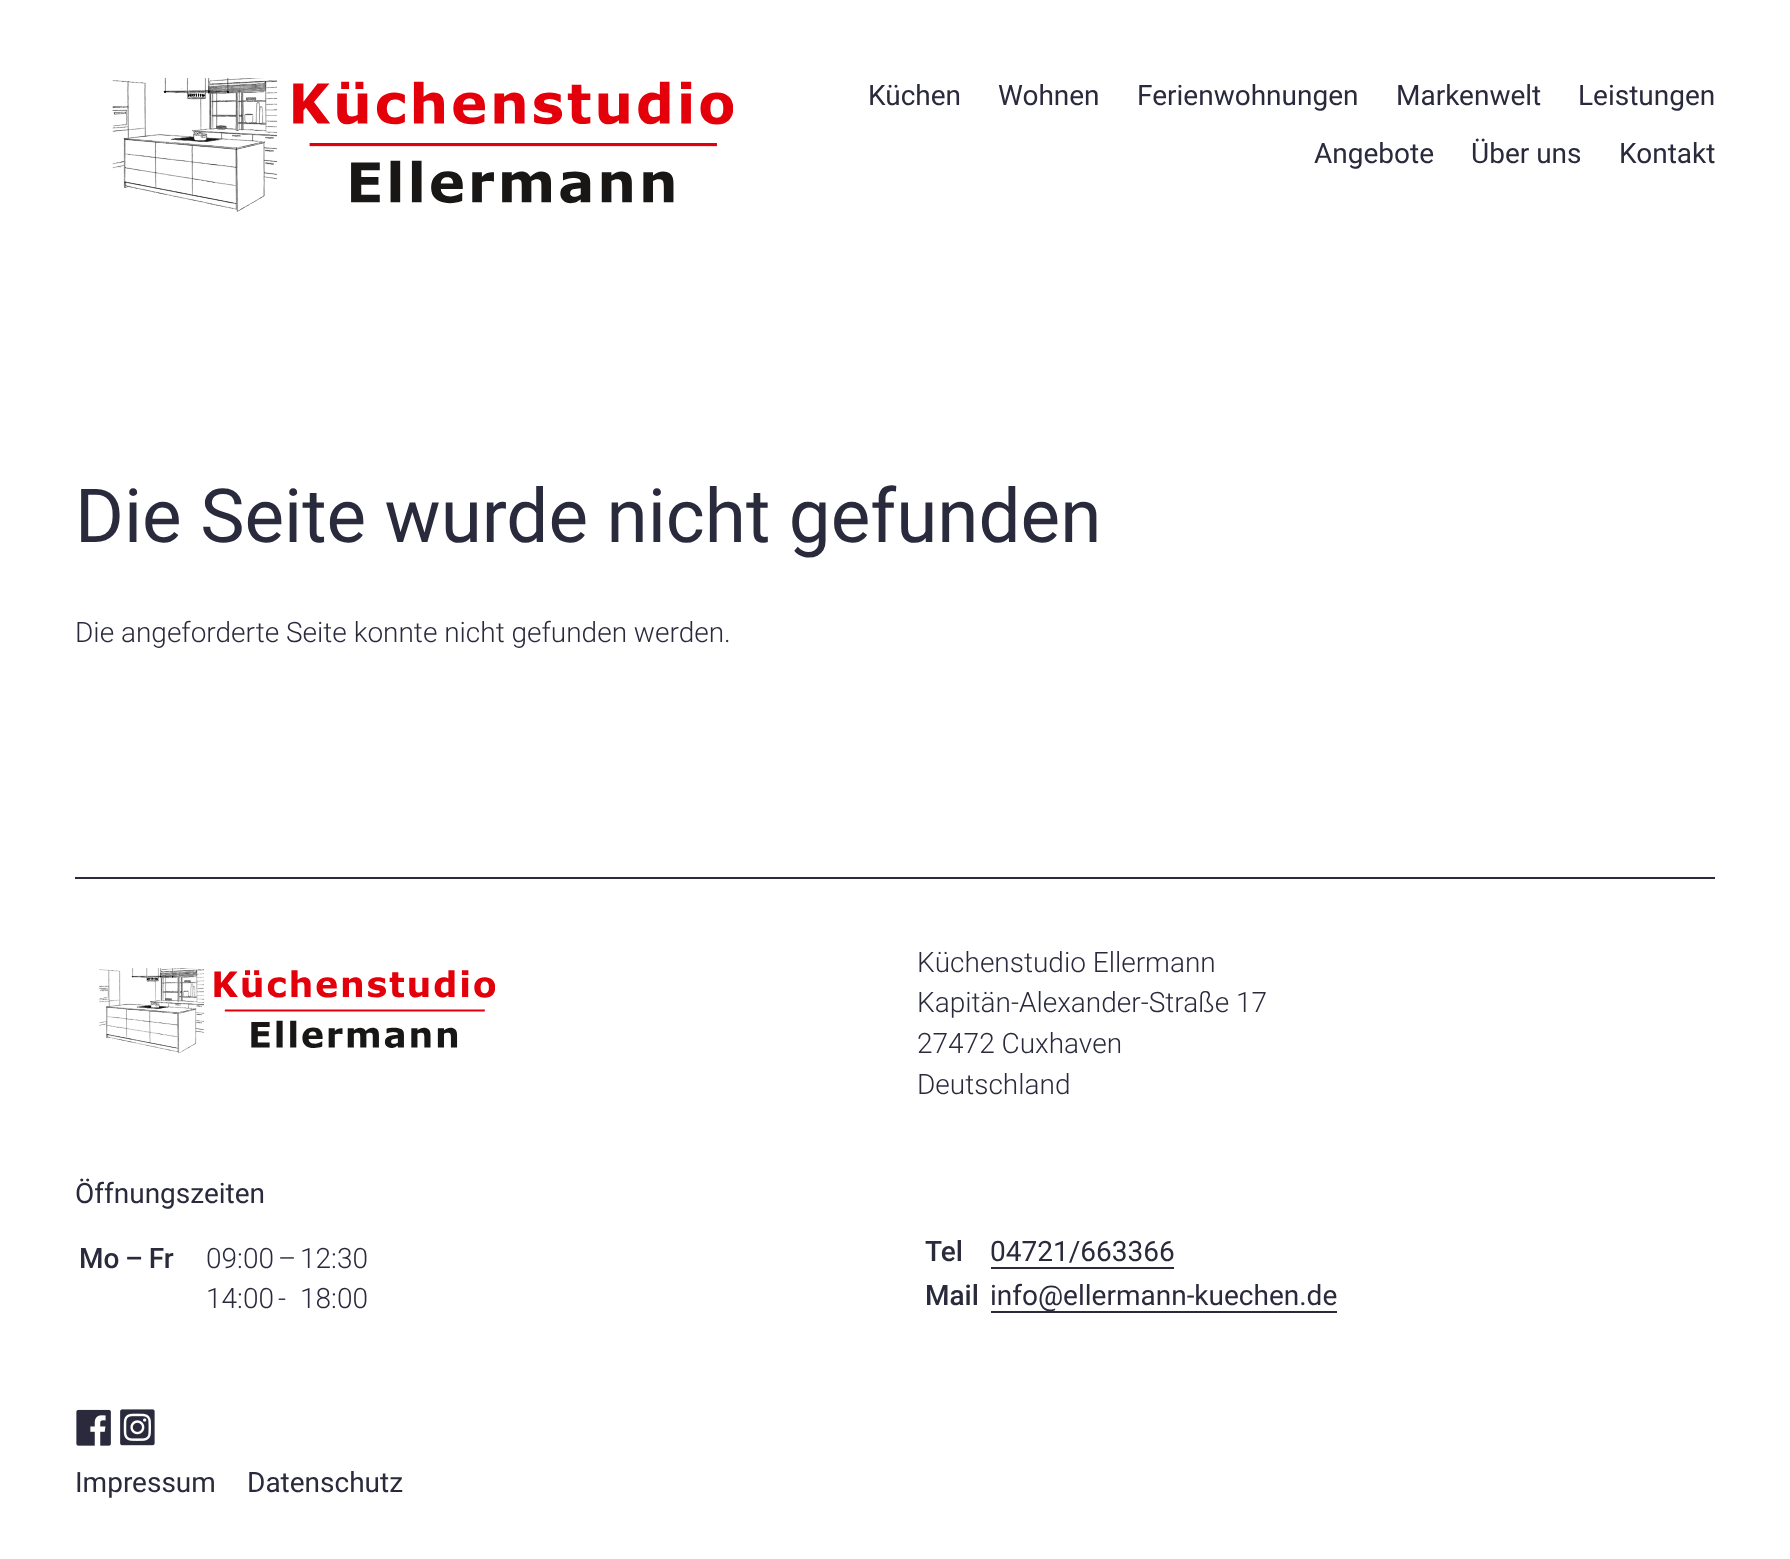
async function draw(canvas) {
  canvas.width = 1790;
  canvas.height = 1559;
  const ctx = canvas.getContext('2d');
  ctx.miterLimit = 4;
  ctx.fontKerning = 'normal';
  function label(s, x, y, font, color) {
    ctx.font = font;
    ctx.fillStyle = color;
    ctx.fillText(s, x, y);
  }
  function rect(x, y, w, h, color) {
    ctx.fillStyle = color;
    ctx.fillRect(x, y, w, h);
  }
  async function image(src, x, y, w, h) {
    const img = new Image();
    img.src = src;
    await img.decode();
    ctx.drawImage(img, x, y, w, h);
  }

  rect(0, 0, 1790, 1559, '#fff');
  await image('assets/img1.png', 112, 78, 621, 134);
  label('Küchen', 868, 105, '28px Roboto', '#2a2a3d');
  label('Wohnen', 998, 105, '28px Roboto', '#2a2a3d');
  label('Ferienwohnungen', 1137, 105, '28px Roboto', '#2a2a3d');
  label('Markenwelt', 1396, 105, '28px Roboto', '#2a2a3d');
  label('Leistungen', 1578, 105, '28px Roboto', '#2a2a3d');
  label('Angebote', 1314, 163, '28px Roboto', '#2a2a3d');
  label('Über uns', 1471, 163, '28px Roboto', '#2a2a3d');
  label('Kontakt', 1619, 163, '28px Roboto', '#2a2a3d');
  label('Die Seite wurde nicht gefunden', 75, 542, '74.6px Roboto', '#2a2a3d');
  label('Die angeforderte Seite konnte nicht gefunden werden.', 75, 642, '300 28px Roboto', '#2a2a3d');
  rect(75, 877, 1640, 2, '#2a2a3d');
  await image('assets/img2.png', 99, 968, 396, 86);
  label('Küchenstudio Ellermann', 917, 972, '300 28px Roboto', '#2a2a3d');
  label('Kapitän-Alexander-Straße 17', 917, 1012, '300 28px Roboto', '#2a2a3d');
  label('27472 Cuxhaven', 917, 1053, '300 28px Roboto', '#2a2a3d');
  label('Deutschland', 917, 1094, '300 28px Roboto', '#2a2a3d');
  label('Öffnungszeiten', 75, 1203, '28px Roboto', '#2a2a3d');
  label('Mo – Fr', 79, 1268, '500 28px Roboto', '#2a2a3d');
  label('09:00', 206, 1268, '300 28px Roboto', '#2a2a3d');
  label('–', 278, 1268, '300 28px Roboto', '#2a2a3d');
  label('12:30', 300, 1268, '300 28px Roboto', '#2a2a3d');
  label('14:00', 206, 1308, '300 28px Roboto', '#2a2a3d');
  label('-', 278, 1308, '300 28px Roboto', '#2a2a3d');
  label('18:00', 300, 1308, '300 28px Roboto', '#2a2a3d');
  label('Tel', 925, 1261, '500 28px Roboto', '#2a2a3d');
  label('04721/663366', 990, 1261, '28px Roboto', '#2a2a3d');
  rect(991, 1267, 183, 2, '#2a2a3d');
  label('Mail', 925, 1305, '500 28px Roboto', '#2a2a3d');
  rect(991, 1311, 346, 2, '#2a2a3d');
  label('info@ellermann-kuechen.de', 990, 1305, '28px Roboto', '#2a2a3d');
  await image('assets/img3.png', 76, 1409, 35, 37);
  await image('assets/img4.png', 120, 1409, 35, 37);
  label('Impressum', 75, 1492, '28px Roboto', '#2a2a3d');
  label('Datenschutz', 247, 1492, '28px Roboto', '#2a2a3d');
}

draw(document.querySelector('canvas'));
